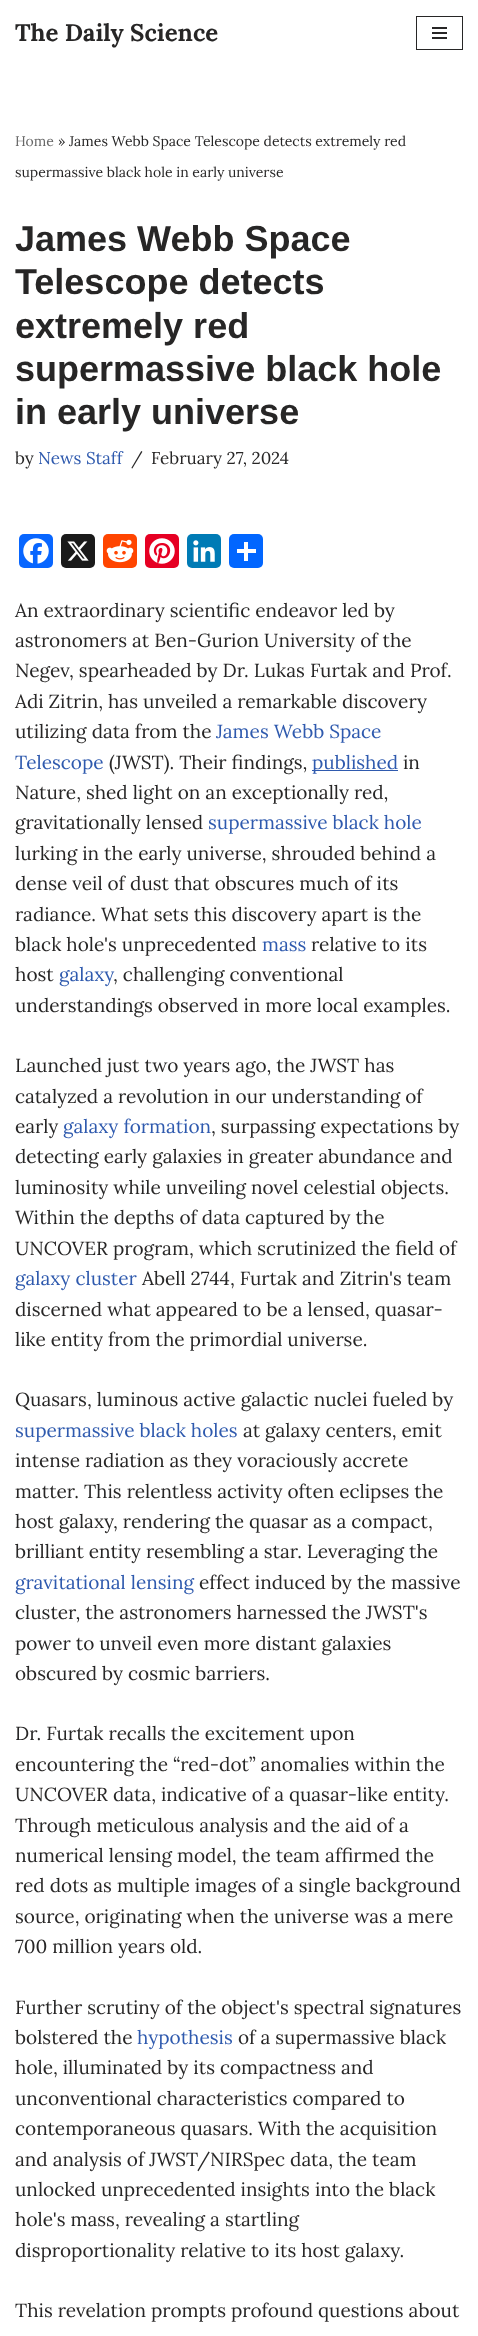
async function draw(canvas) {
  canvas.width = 478;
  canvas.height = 2336;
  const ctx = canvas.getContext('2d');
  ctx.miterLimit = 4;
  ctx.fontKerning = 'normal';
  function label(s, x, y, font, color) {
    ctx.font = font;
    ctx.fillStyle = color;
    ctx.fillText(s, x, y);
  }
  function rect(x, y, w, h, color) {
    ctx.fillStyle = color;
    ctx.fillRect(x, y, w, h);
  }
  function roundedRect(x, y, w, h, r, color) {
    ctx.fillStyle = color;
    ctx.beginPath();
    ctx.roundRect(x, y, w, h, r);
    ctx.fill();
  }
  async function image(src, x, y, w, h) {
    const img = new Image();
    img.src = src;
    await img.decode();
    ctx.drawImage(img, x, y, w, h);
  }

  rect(0, 0, 478, 2336, '#fff');
  label('The Daily Science', 15, 41, 'bold 24px Lora', '#272626');
  ctx.strokeStyle = '#272626';
  ctx.strokeRect(416.5, 16.5, 46, 33);
  rect(432, 27, 15, 2, '#272626');
  rect(432, 32, 15, 2, '#272626');
  rect(432, 37, 15, 2, '#272626');
  label('Home', 15, 146, '14px Lora', '#676767');
  label('» James Webb Space Telescope detects extremely red', 58, 146, '14px Lora', '#272626');
  label('supermassive black hole in early universe', 15, 177, '14px Lora', '#272626');
  label('James Webb Space', 15, 251, 'bold 36px Liberation Sans', '#272626');
  label('Telescope detects', 15, 294, 'bold 36px Liberation Sans', '#272626');
  label('extremely red', 15, 338, 'bold 36px Liberation Sans', '#272626');
  label('supermassive black hole', 15, 381, 'bold 36px Liberation Sans', '#272626');
  label('in early universe', 15, 424, 'bold 36px Liberation Sans', '#272626');
  label('by', 15, 464, '17px Lora', '#272626');
  label('News Staff', 38, 464, '17px Lora', '#2f5aae');
  label('/', 131, 464, '17px Lora', '#272626');
  label('February 27, 2024', 151, 464, '17px Lora', '#272626');
  roundedRect(19, 534, 34, 34, 5, '#0866ff');
  await image('assets/img1.png', 23, 538, 26, 26);
  roundedRect(61, 534, 34, 34, 5, '#1a1a1a');
  await image('assets/img2.png', 67, 541, 22, 20);
  roundedRect(103, 534, 34, 34, 5, '#ff4500');
  await image('assets/img3.png', 106, 539, 28, 24);
  roundedRect(145, 534, 34, 34, 5, '#e60023');
  await image('assets/img4.png', 149, 538, 26, 26);
  roundedRect(187, 534, 34, 34, 5, '#007bb5');
  await image('assets/img5.png', 193, 540, 22, 22);
  roundedRect(229, 534, 34, 34, 5, '#0166ff');
  rect(244, 542, 4, 19, '#fff');
  rect(237, 549, 19, 4, '#fff');
  label('An extraordinary scientific endeavor led by', 15, 617, '19px Lora', '#272626');
  label('astronomers at Ben-Gurion University of the', 15, 647, '19px Lora', '#272626');
  label('Negev, spearheaded by Dr. Lukas Furtak and Prof.', 15, 677, '19px Lora', '#272626');
  label('Adi Zitrin, has unveiled a remarkable discovery', 15, 708, '19px Lora', '#272626');
  label('utilizing data from the', 15, 738, '19px Lora', '#272626');
  label('James Webb Space', 216, 738, '19px Lora', '#2f5aae');
  label('Telescope', 15, 769, '19px Lora', '#2f5aae');
  label('(JWST). Their findings,', 109, 769, '19px Lora', '#272626');
  rect(312, 770, 86, 1, '#2f5aae');
  label('published', 312, 769, '19px Lora', '#2f5aae');
  label('in', 403, 769, '19px Lora', '#272626');
  label('Nature, shed light on an exceptionally red,', 15, 799, '19px Lora', '#272626');
  label('gravitationally lensed', 15, 829, '19px Lora', '#272626');
  label('supermassive black hole', 208, 829, '19px Lora', '#2f5aae');
  label('lurking in the early universe, shrouded behind a', 15, 860, '19px Lora', '#272626');
  label('dense veil of dust that obscures much of its', 15, 890, '19px Lora', '#272626');
  label('radiance. What sets this discovery apart is the', 15, 921, '19px Lora', '#272626');
  label('black hole\'s unprecedented', 15, 951, '19px Lora', '#272626');
  label('mass', 262, 951, '19px Lora', '#2f5aae');
  label('relative to its', 311, 951, '19px Lora', '#272626');
  label('host', 15, 981, '19px Lora', '#272626');
  label('galaxy', 59, 981, '19px Lora', '#2f5aae');
  label(', challenging conventional', 113, 981, '19px Lora', '#272626');
  label('understandings observed in more local examples.', 15, 1012, '19px Lora', '#272626');
  label('Launched just two years ago, the JWST has', 15, 1072, '19px Lora', '#272626');
  label('catalyzed a revolution in our understanding of', 15, 1103, '19px Lora', '#272626');
  label('early', 15, 1133, '19px Lora', '#272626');
  label('galaxy formation', 63, 1133, '19px Lora', '#2f5aae');
  label(', surpassing expectations by', 211, 1133, '19px Lora', '#272626');
  label('detecting early galaxies in greater abundance and', 15, 1163, '19px Lora', '#272626');
  label('luminosity while unveiling novel celestial objects.', 15, 1194, '19px Lora', '#272626');
  label('Within the depths of data captured by the', 15, 1224, '19px Lora', '#272626');
  label('UNCOVER program, which scrutinized the field of', 15, 1255, '19px Lora', '#272626');
  label('galaxy cluster', 15, 1285, '19px Lora', '#2f5aae');
  label('Abell 2744, Furtak and Zitrin\'s team', 142, 1285, '19px Lora', '#272626');
  label('discerned what appeared to be a lensed, quasar-', 15, 1316, '19px Lora', '#272626');
  label('like entity from the primordial universe.', 15, 1346, '19px Lora', '#272626');
  label('Quasars, luminous active galactic nuclei fueled by', 15, 1406, '19px Lora', '#272626');
  label('supermassive black holes', 15, 1437, '19px Lora', '#2f5aae');
  label('at galaxy centers, emit', 243, 1437, '19px Lora', '#272626');
  label('intense radiation as they voraciously accrete', 15, 1467, '19px Lora', '#272626');
  label('matter. This relentless activity often eclipses the', 15, 1498, '19px Lora', '#272626');
  label('host galaxy, rendering the quasar as a compact,', 15, 1528, '19px Lora', '#272626');
  label('brilliant entity resembling a star. Leveraging the', 15, 1558, '19px Lora', '#272626');
  label('gravitational lensing', 15, 1589, '19px Lora', '#2f5aae');
  label('effect induced by the massive', 199, 1589, '19px Lora', '#272626');
  label('cluster, the astronomers harnessed the JWST\'s', 15, 1619, '19px Lora', '#272626');
  label('power to unveil even more distant galaxies', 15, 1650, '19px Lora', '#272626');
  label('obscured by cosmic barriers.', 15, 1680, '19px Lora', '#272626');
  label('Dr. Furtak recalls the excitement upon', 15, 1740, '19px Lora', '#272626');
  label('encountering the “red-dot” anomalies within the', 15, 1771, '19px Lora', '#272626');
  label('UNCOVER data, indicative of a quasar-like entity.', 15, 1801, '19px Lora', '#272626');
  label('Through meticulous analysis and the aid of a', 15, 1832, '19px Lora', '#272626');
  label('numerical lensing model, the team affirmed the', 15, 1862, '19px Lora', '#272626');
  label('red dots as multiple images of a single background', 15, 1892, '19px Lora', '#272626');
  label('source, originating when the universe was a mere', 15, 1923, '19px Lora', '#272626');
  label('700 million years old.', 15, 1953, '19px Lora', '#272626');
  label('Further scrutiny of the object\'s spectral signatures', 15, 2014, '19px Lora', '#272626');
  label('bolstered the', 15, 2044, '19px Lora', '#272626');
  label('hypothesis', 137, 2044, '19px Lora', '#2f5aae');
  label('of a supermassive black', 238, 2044, '19px Lora', '#272626');
  label('hole, illuminated by its compactness and', 15, 2074, '19px Lora', '#272626');
  label('unconventional characteristics compared to', 15, 2105, '19px Lora', '#272626');
  label('contemporaneous quasars. With the acquisition', 15, 2135, '19px Lora', '#272626');
  label('and analysis of JWST/NIRSpec data, the team', 15, 2166, '19px Lora', '#272626');
  label('unlocked unprecedented insights into the black', 15, 2196, '19px Lora', '#272626');
  label('hole\'s mass, revealing a startling', 15, 2226, '19px Lora', '#272626');
  label('disproportionality relative to its host galaxy.', 15, 2257, '19px Lora', '#272626');
  label('This revelation prompts profound questions about', 15, 2317, '19px Lora', '#272626');
}

draw(document.querySelector('canvas'));
